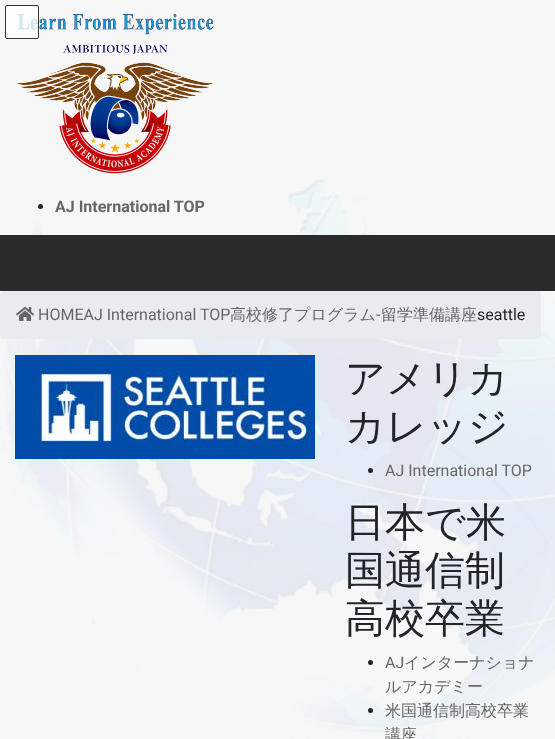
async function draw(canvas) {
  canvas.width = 555;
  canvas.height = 739;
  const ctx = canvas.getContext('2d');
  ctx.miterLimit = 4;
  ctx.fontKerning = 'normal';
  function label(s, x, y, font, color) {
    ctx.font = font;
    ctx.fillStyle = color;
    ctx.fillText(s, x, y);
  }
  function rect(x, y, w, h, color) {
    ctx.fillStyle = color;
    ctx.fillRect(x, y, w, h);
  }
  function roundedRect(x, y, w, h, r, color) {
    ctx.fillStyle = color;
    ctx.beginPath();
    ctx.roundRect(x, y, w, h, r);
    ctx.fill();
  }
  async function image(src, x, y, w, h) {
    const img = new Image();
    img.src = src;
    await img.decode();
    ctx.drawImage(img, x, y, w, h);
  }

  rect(0, 0, 555, 739, '#f7f7f7');
  await image('assets/img1.png', 0, 179, 555, 560);
  await image('assets/img2.png', 16, 13, 198, 161);
  ctx.fillStyle = '#ffffffcc';
  ctx.beginPath();
  ctx.roundRect(5.5, 5.5, 33, 33, 1.5);
  ctx.fill();
  ctx.strokeStyle = '#333';
  ctx.stroke();
  ctx.fillStyle = '#212529';
  ctx.beginPath();
  ctx.arc(40.5, 206.5, 2.5, 0, 2 * Math.PI);
  ctx.fill();
  label('AJ International TOP', 55, 212, 'bold 16px Roboto', '#666');
  rect(0, 235, 555, 56, '#2b2b2b');
  roundedRect(0, 291, 541, 48, 4, '#e9ecef');
  await image('assets/img3.png', 16, 307, 18, 14);
  label('HOMEAJ International TOP', 38, 320, '16px Roboto', '#666');
  label('高校修了プログラム', 230, 320, '500 16px WenQuanYi Zen Hei', '#666');
  label('-', 376, 320, '16px Roboto', '#666');
  label('留学準備講座', 381, 320, '500 16px WenQuanYi Zen Hei', '#666');
  label('seattle', 477, 320, '16px Roboto', '#212529');
  await image('assets/img4.png', 15, 355, 300, 104);
  label('アメリカ', 345, 392, '500 40px WenQuanYi Zen Hei', '#212529');
  label('カレッジ', 345, 440, '500 40px WenQuanYi Zen Hei', '#212529');
  ctx.beginPath();
  ctx.arc(370.5, 470.5, 2.5, 0, 2 * Math.PI);
  ctx.fill();
  label('AJ International TOP', 385, 476, '16px Roboto', '#666');
  label('日本で米', 345, 536, '500 40px WenQuanYi Zen Hei', '#212529');
  label('国通信制', 345, 584, '500 40px WenQuanYi Zen Hei', '#212529');
  label('高校卒業', 345, 632, '500 40px WenQuanYi Zen Hei', '#212529');
  ctx.beginPath();
  ctx.arc(370.5, 662.5, 2.5, 0, 2 * Math.PI);
  ctx.fill();
  label('AJ', 385, 668, '16px Roboto', '#666');
  label('インターナショナ', 404, 668, '500 16px WenQuanYi Zen Hei', '#666');
  label('ルアカデミー', 385, 692, '500 16px WenQuanYi Zen Hei', '#666');
  ctx.fillStyle = '#212529';
  ctx.beginPath();
  ctx.arc(370.5, 710.5, 2.5, 0, 2 * Math.PI);
  ctx.fill();
  label('米国通信制高校卒業', 385, 716, '500 16px WenQuanYi Zen Hei', '#666');
  label('講座', 385, 740, '500 16px WenQuanYi Zen Hei', '#666');
}

draw(document.querySelector('canvas'));
